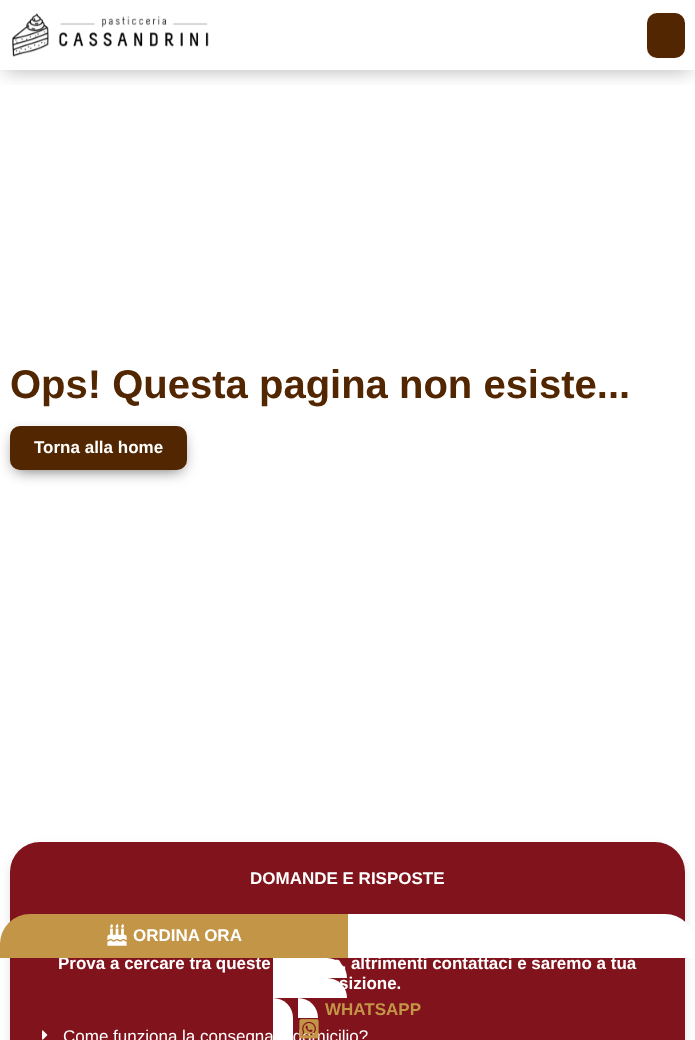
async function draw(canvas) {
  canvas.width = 695;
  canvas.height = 1040;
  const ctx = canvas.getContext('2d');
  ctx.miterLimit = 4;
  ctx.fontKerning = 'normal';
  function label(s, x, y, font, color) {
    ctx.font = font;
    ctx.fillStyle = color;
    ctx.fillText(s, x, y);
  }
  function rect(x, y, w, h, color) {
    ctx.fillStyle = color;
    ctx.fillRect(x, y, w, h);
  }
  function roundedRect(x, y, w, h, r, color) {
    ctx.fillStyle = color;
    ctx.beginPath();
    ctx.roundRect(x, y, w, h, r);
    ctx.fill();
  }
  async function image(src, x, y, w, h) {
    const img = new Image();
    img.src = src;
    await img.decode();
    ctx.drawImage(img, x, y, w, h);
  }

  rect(0, 0, 695, 1040, '#fff');
  ctx.save();
  ctx.beginPath();
  ctx.rect(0, 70, 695, 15);
  ctx.clip();
  ctx.fillStyle = '#0000004f';
  ctx.filter = 'blur(10px)';
  ctx.beginPath();
  ctx.rect(5, 10, 685, 60);
  ctx.fill();
  ctx.filter = 'none';
  ctx.restore();
  await image('assets/img1.png', 12, 13, 197, 44);
  roundedRect(647, 13, 38, 45, 10, '#522600');
  label('Ops! Questa pagina non esiste...', 10, 398, 'bold 40px Liberation Sans', '#522600');
  ctx.fillStyle = '#0000009c';
  ctx.filter = 'blur(7.5px)';
  ctx.beginPath();
  ctx.roundRect(15, 436, 167, 34, 5);
  ctx.fill();
  ctx.filter = 'none';
  roundedRect(10, 426, 177, 44, 10, '#522600');
  label('Torna alla home', 34, 453, 'bold 17px Liberation Sans', '#fff');
  ctx.fillStyle = '#0000003d';
  ctx.filter = 'blur(7.5px)';
  ctx.beginPath();
  ctx.roundRect(15, 852, 665, 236, 25);
  ctx.fill();
  ctx.filter = 'none';
  roundedRect(10, 842, 675, 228, 30, '#80131c');
  label('DOMANDE E RISPOSTE', 250, 884, 'bold 17px Liberation Sans', '#fff');
  label('Prova a cercare tra queste', 58, 969, 'bold 17px Liberation Sans', '#fff');
  label('e, altrimenti contattaci e saremo a tua', 332, 969, 'bold 17px Liberation Sans', '#fff');
  label('sizione.', 339, 989, 'bold 17px Liberation Sans', '#fff');
  await image('assets/img2.png', 42, 1030, 6, 10);
  label('Come funziona la consegna a domicilio?', 63, 1042, '17px Liberation Sans', '#fff');
  ctx.fillStyle = '#c29547';
  ctx.beginPath();
  ctx.roundRect(0, 914, 348, 44, [30, 0, 0, 0]);
  ctx.fill();
  await image('assets/img3.png', 107, 923, 20, 23);
  label('ORDINA ORA', 133, 941, 'bold 17px Liberation Sans', '#fff');
  ctx.beginPath();
  ctx.roundRect(348, 914, 347, 44, [0, 30, 0, 0]);
  ctx.fill();
  ctx.beginPath();
  ctx.roundRect(273, 958, 74, 20, [0, 20, 0, 0]);
  ctx.fill();
  ctx.beginPath();
  ctx.roundRect(273, 978, 74, 20, [0, 20, 0, 0]);
  ctx.fill();
  ctx.beginPath();
  ctx.roundRect(273, 998, 20, 42, [0, 20, 0, 0]);
  ctx.fill();
  ctx.beginPath();
  ctx.roundRect(298, 998, 20, 20, [0, 20, 0, 0]);
  ctx.fill();
  await image('assets/img4.png', 299, 1019, 20, 20);
  label('WHATSAPP', 325, 1015, 'bold 17px Liberation Sans', '#c29547');
}

draw(document.querySelector('canvas'));
